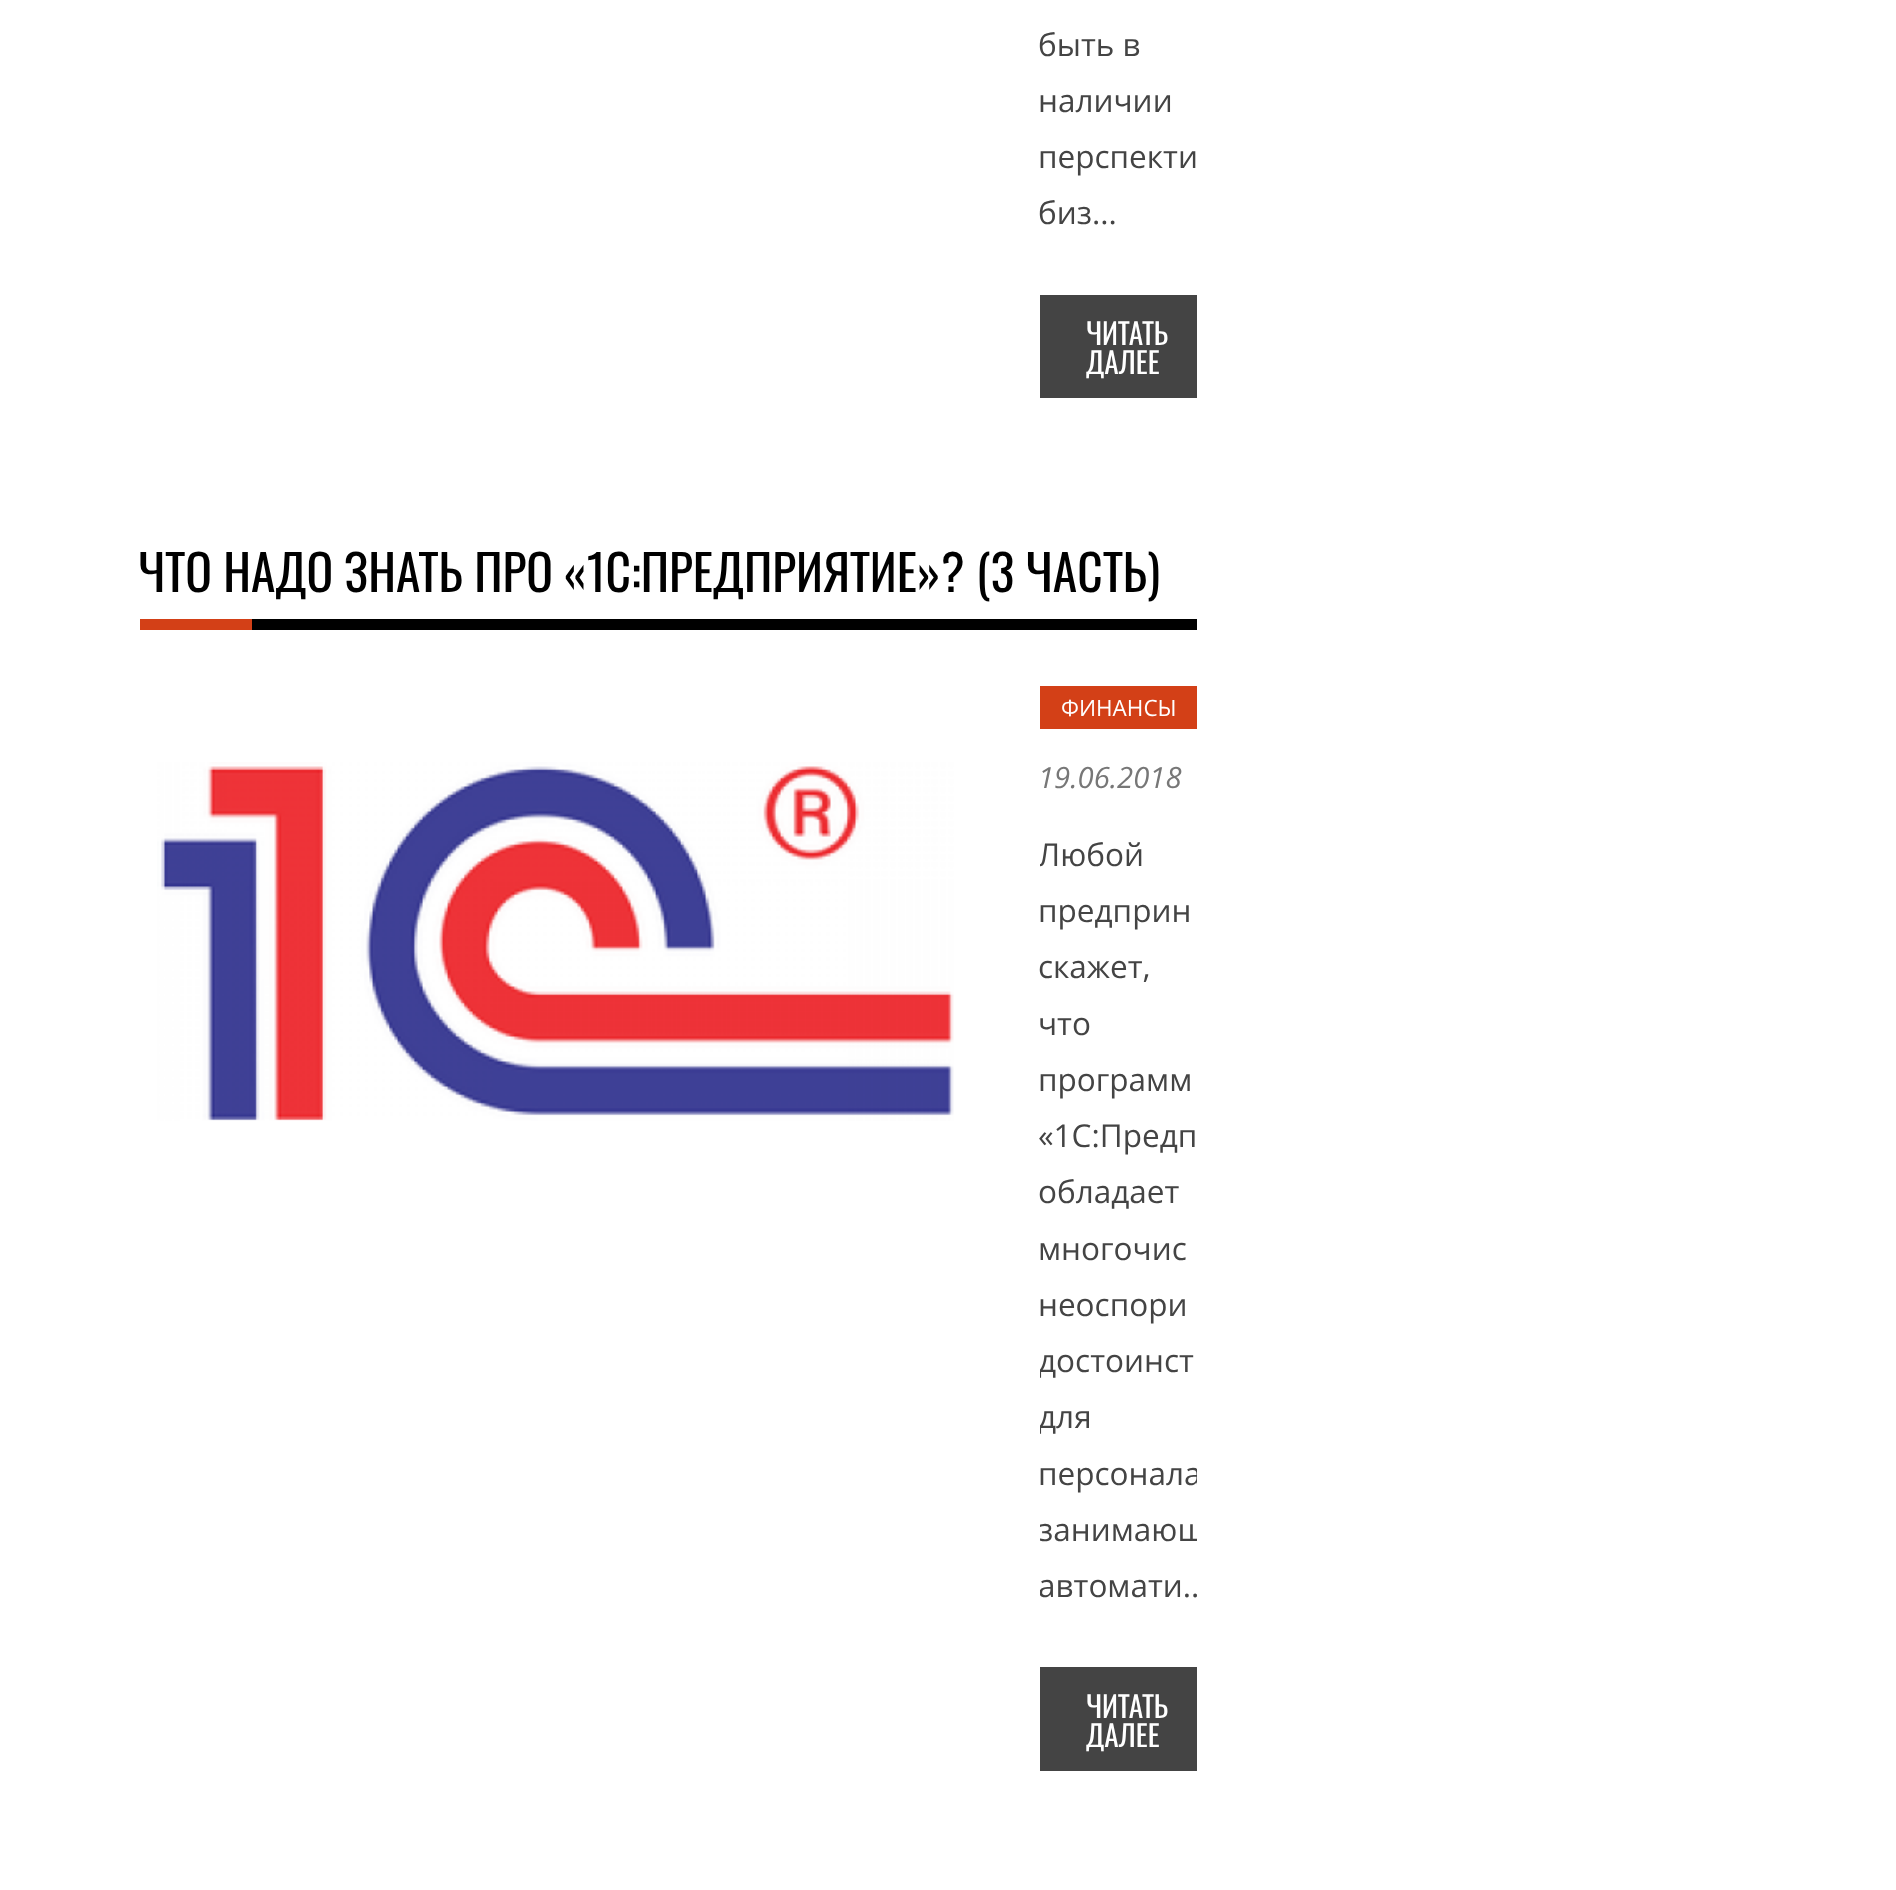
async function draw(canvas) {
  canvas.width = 1896;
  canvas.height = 1890;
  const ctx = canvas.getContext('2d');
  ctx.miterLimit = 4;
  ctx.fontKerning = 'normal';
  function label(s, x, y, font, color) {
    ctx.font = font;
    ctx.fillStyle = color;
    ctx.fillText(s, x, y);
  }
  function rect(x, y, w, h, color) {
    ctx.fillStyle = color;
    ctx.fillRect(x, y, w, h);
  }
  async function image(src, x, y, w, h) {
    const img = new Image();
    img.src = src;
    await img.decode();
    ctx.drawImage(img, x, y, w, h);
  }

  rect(0, 0, 1896, 1890, '#fff');
  label('быть в', 1038, 56, '31.5px Open Sans', '#444');
  label('наличии', 1038, 112, '31.5px Open Sans', '#444');
  label('перспекти', 1038, 168, '31.5px Open Sans', '#444');
  label('биз...', 1038, 224, '31.5px Open Sans', '#444');
  rect(1040, 295, 157, 103, '#444');
  label('ЧИТАТЬ', 1086, 345, '29.25px Oswald', '#fff');
  label('ДАЛЕЕ', 1086, 374, '29.25px Oswald', '#fff');
  rect(252, 619, 945, 11, '#000');
  label('ЧТО НАДО ЗНАТЬ ПРО «1С:ПРЕДПРИЯТИЕ»? (3 ЧАСТЬ)', 138, 592, '49.5px Oswald', '#000');
  rect(140, 619, 112, 11, '#d34017');
  await image('assets/img1.png', 157, 762, 797, 359);
  rect(1040, 686, 157, 43, '#d34017');
  label('ФИНАНСЫ', 1061, 716, '22.5px Open Sans', '#fff');
  label('19.06.2018', 1038, 788, 'italic 29.25px Open Sans', '#777');
  ctx.save();
  ctx.beginPath();
  ctx.rect(1040, 675, 157, 1096);
  ctx.clip();
  label('Любой', 1038, 866, '31.5px Open Sans', '#444');
  ctx.restore();
  label('предприн', 1038, 922, '31.5px Open Sans', '#444');
  label('скажет,', 1038, 978, '31.5px Open Sans', '#444');
  label('что', 1038, 1035, '31.5px Open Sans', '#444');
  label('программ', 1038, 1091, '31.5px Open Sans', '#444');
  label('«1С:Предп', 1038, 1147, '31.5px Open Sans', '#444');
  label('обладает', 1038, 1203, '31.5px Open Sans', '#444');
  label('многочис', 1038, 1260, '31.5px Open Sans', '#444');
  label('неоспори', 1038, 1316, '31.5px Open Sans', '#444');
  ctx.save();
  ctx.beginPath();
  ctx.rect(1040, 675, 157, 1096);
  ctx.clip();
  label('достоинст', 1038, 1372, '31.5px Open Sans', '#444');
  label('для', 1038, 1428, '31.5px Open Sans', '#444');
  label('персонала', 1038, 1485, '31.5px Open Sans', '#444');
  label('занимающ', 1038, 1541, '31.5px Open Sans', '#444');
  label('автомати..', 1038, 1597, '31.5px Open Sans', '#444');
  ctx.restore();
  rect(1040, 1667, 157, 104, '#444');
  label('ЧИТАТЬ', 1086, 1718, '29.25px Oswald', '#fff');
  label('ДАЛЕЕ', 1086, 1747, '29.25px Oswald', '#fff');
}

draw(document.querySelector('canvas'));
